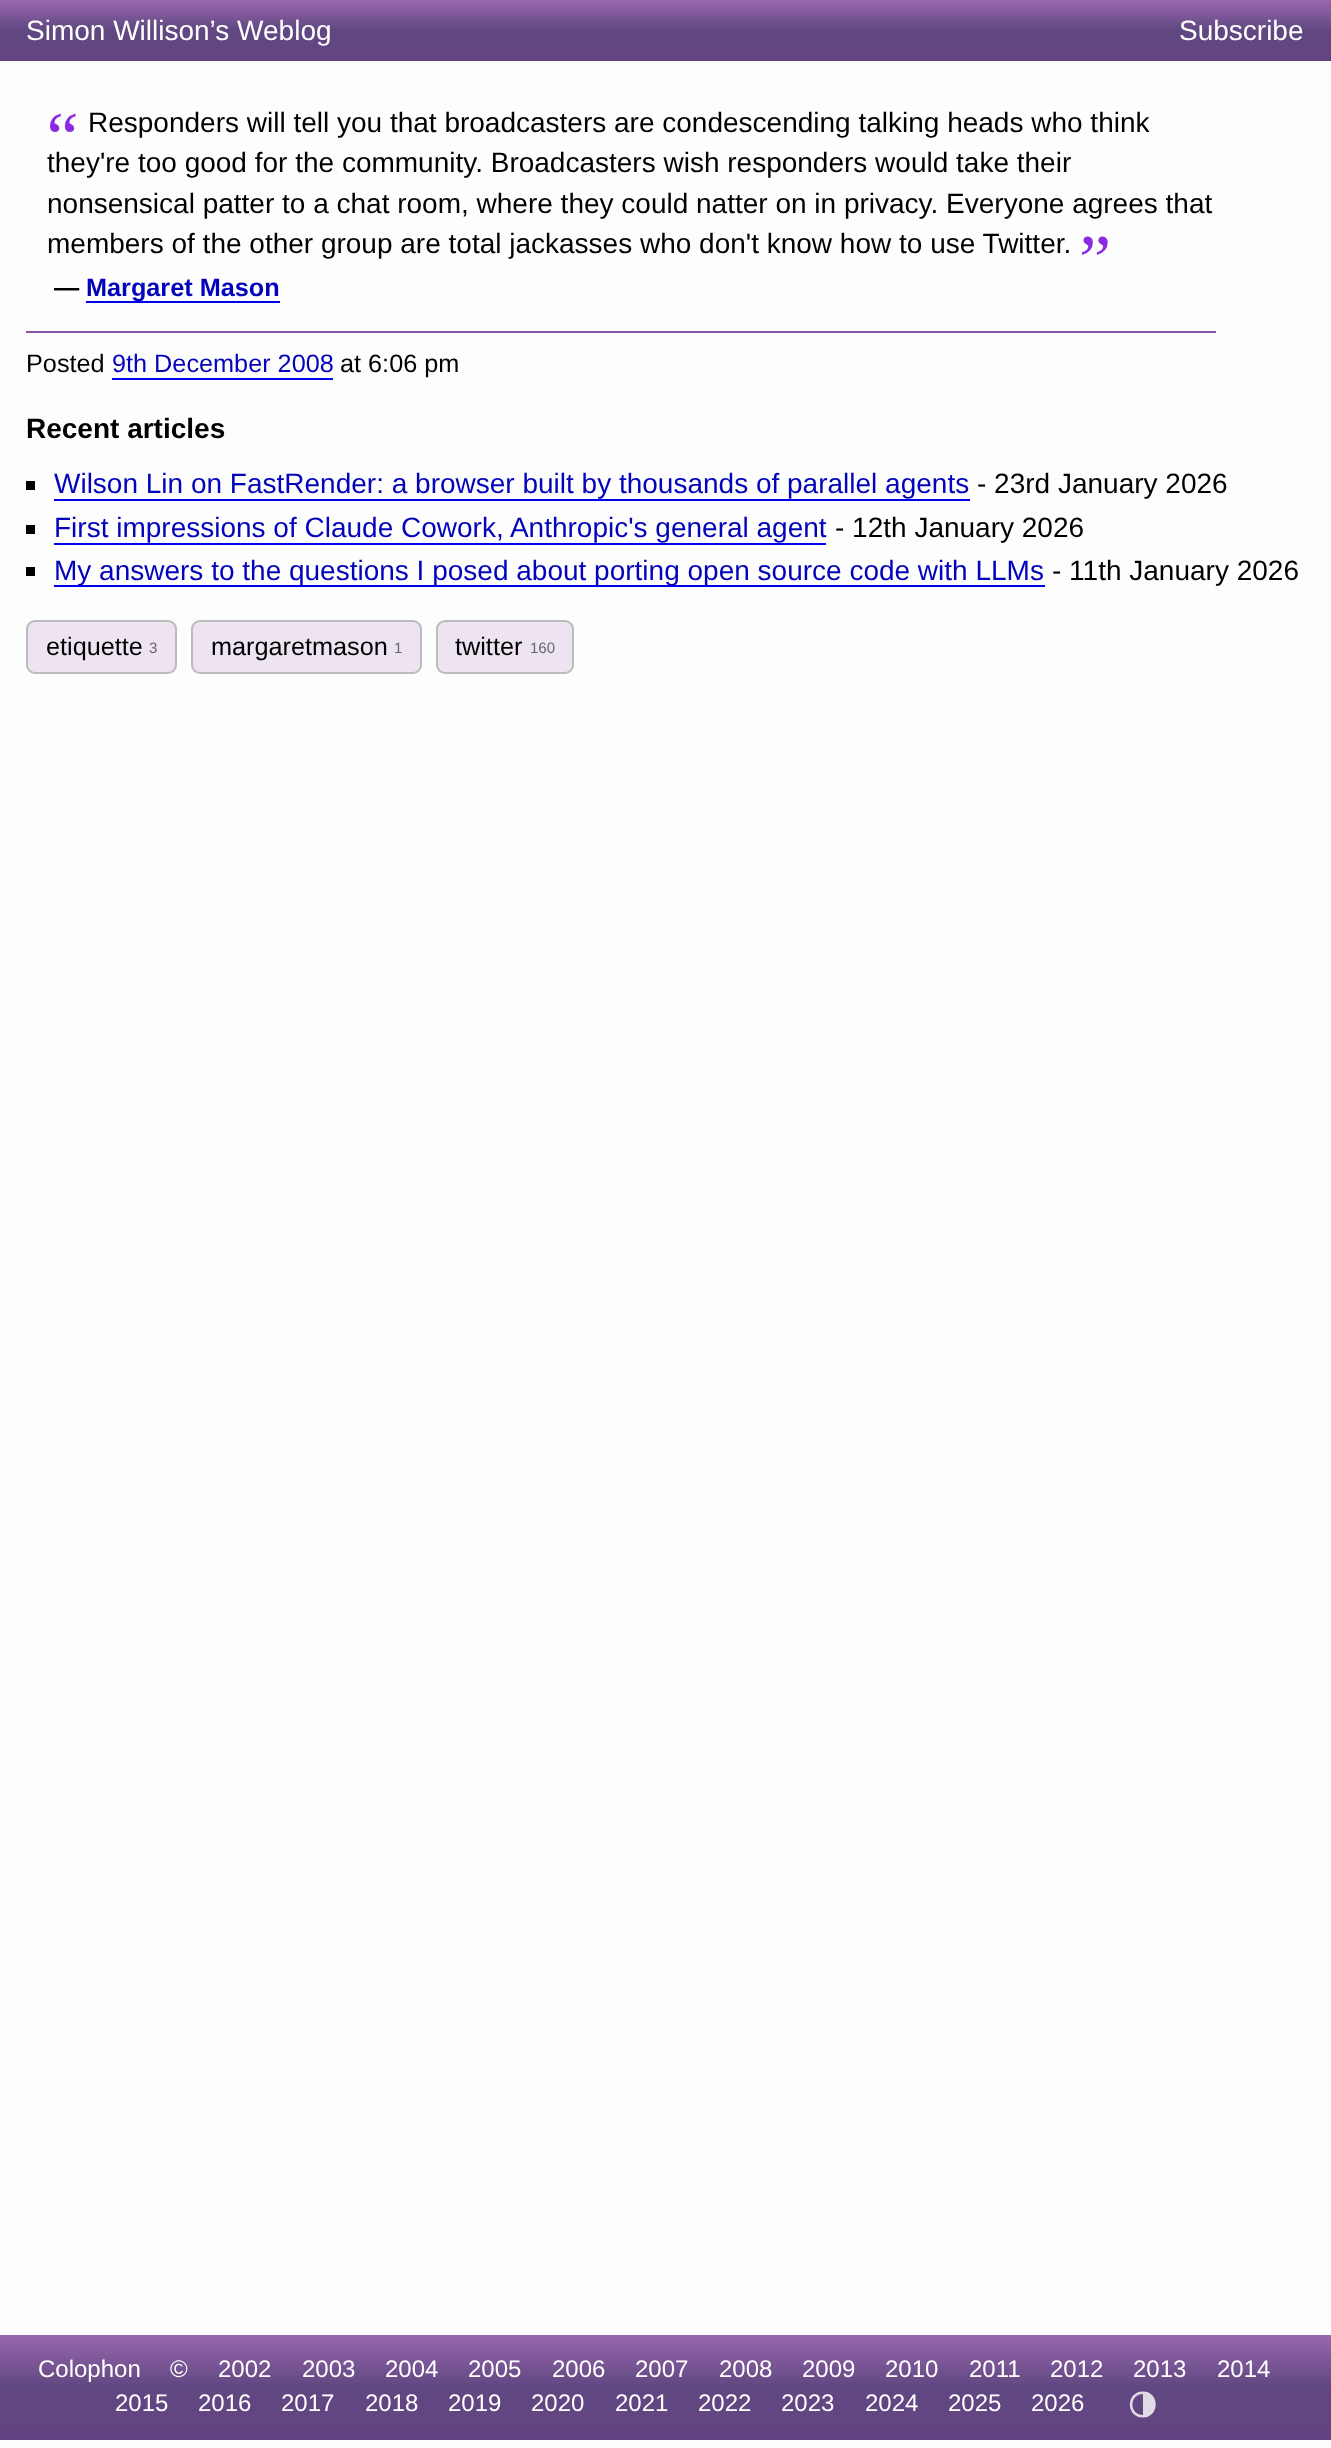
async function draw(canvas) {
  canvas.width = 1331;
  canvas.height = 2448;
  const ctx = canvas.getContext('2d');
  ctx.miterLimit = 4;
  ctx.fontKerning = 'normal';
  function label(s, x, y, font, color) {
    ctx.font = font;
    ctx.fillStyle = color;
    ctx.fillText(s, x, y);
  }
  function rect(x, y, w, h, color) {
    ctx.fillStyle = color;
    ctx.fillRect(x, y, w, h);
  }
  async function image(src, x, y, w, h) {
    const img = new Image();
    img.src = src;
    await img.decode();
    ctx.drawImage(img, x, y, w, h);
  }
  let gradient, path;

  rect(0, 0, 1331, 2448, '#fdfdfd');
  gradient = ctx.createLinearGradient(666, 0, 666, 61);
  gradient.addColorStop(0, '#9a67af');
  gradient.addColorStop(0.49, '#604881');
  gradient.addColorStop(1, '#644382');
  ctx.fillStyle = gradient;
  ctx.fillRect(0, 0, 1331, 61);
  label('Simon Willison’s Weblog', 26, 40, '28px Liberation Sans', '#fff');
  label('Subscribe', 1179, 40, '28px Liberation Sans', '#fff');
  await image('assets/img1.png', 50, 113, 26, 19);
  label('Responders will tell you that broadcasters are condescending talking heads who think', 88, 132, '28px Liberation Sans', '#000');
  label('they\'re too good for the community. Broadcasters wish responders would take their', 47, 172, '28px Liberation Sans', '#000');
  label('nonsensical patter to a chat room, where they could natter on in privacy. Everyone agrees that', 47, 213, '28px Liberation Sans', '#000');
  label('members of the other group are total jackasses who don\'t know how to use Twitter.', 47, 253, '28px Liberation Sans', '#000');
  await image('assets/img2.png', 1082, 236, 26, 19);
  label('—', 54, 296, 'bold 25.25px Liberation Sans', '#000');
  rect(86, 301, 194, 2, '#00e');
  label('Margaret Mason', 86, 296, 'bold 25.25px Liberation Sans', '#0303bb');
  rect(26, 331, 1190, 2, '#8a55a8');
  label('Posted', 26, 372, '25.25px Liberation Sans', '#000');
  label('9th December 2008', 112, 372, '25.25px Liberation Sans', '#0303bb');
  rect(112, 378, 221, 2, '#00e');
  label('at 6:06 pm', 340, 372, '25.25px Liberation Sans', '#000');
  label('Recent articles', 26, 438, 'bold 28px Liberation Sans', '#000');
  rect(26, 481, 9, 9, '#000');
  label('Wilson Lin on FastRender: a browser built by thousands of parallel agents', 54, 493, '28px Liberation Sans', '#0303bb');
  rect(54, 499, 916, 2, '#00e');
  label('- 23rd January 2026', 977, 493, '28px Liberation Sans', '#000');
  rect(26, 525, 9, 9, '#000');
  label('First impressions of Claude Cowork, Anthropic\'s general agent', 54, 537, '28px Liberation Sans', '#0303bb');
  rect(54, 543, 772, 2, '#00e');
  label('- 12th January 2026', 835, 537, '28px Liberation Sans', '#000');
  rect(26, 567, 9, 9, '#000');
  rect(54, 585, 991, 2, '#00e');
  label('My answers to the questions I posed about porting open source code with LLMs', 54, 580, '28px Liberation Sans', '#0303bb');
  label('- 11th January 2026', 1052, 580, '28px Liberation Sans', '#000');
  ctx.fillStyle = '#ede3f1';
  ctx.beginPath();
  ctx.roundRect(27, 621, 149, 52, 8);
  ctx.fill();
  ctx.strokeStyle = '#bbb';
  ctx.lineWidth = 2;
  ctx.stroke();
  label('etiquette', 46, 655, '25.25px Liberation Sans', '#000');
  label('3', 149, 653, '15px Liberation Sans', '#666');
  ctx.fillStyle = '#ede3f1';
  ctx.beginPath();
  ctx.roundRect(192, 621, 229, 52, 8);
  ctx.fill();
  ctx.stroke();
  label('margaretmason', 211, 655, '25.25px Liberation Sans', '#000');
  label('1', 394, 653, '15px Liberation Sans', '#666');
  ctx.fillStyle = '#ede3f1';
  ctx.beginPath();
  ctx.roundRect(437, 621, 136, 52, 8);
  ctx.fill();
  ctx.stroke();
  label('twitter', 455, 655, '25.25px Liberation Sans', '#000');
  label('160', 530, 653, '15px Liberation Sans', '#666');
  gradient = ctx.createLinearGradient(666, 2335, 666, 2440);
  gradient.addColorStop(0, '#9a67af');
  gradient.addColorStop(0.49, '#604881');
  gradient.addColorStop(1, '#644382');
  ctx.fillStyle = gradient;
  ctx.fillRect(0, 2335, 1331, 105);
  label('Colophon', 38, 2377, '24px Liberation Sans', '#fff');
  label('©', 170, 2377, '24px Liberation Sans', '#fff');
  label('2002', 218, 2377, '24px Liberation Sans', '#fff');
  label('2003', 302, 2377, '24px Liberation Sans', '#fff');
  label('2004', 385, 2377, '24px Liberation Sans', '#fff');
  label('2005', 468, 2377, '24px Liberation Sans', '#fff');
  label('2006', 552, 2377, '24px Liberation Sans', '#fff');
  label('2007', 635, 2377, '24px Liberation Sans', '#fff');
  label('2008', 719, 2377, '24px Liberation Sans', '#fff');
  label('2009', 802, 2377, '24px Liberation Sans', '#fff');
  label('2010', 885, 2377, '24px Liberation Sans', '#fff');
  label('2011', 969, 2377, '24px Liberation Sans', '#fff');
  label('2012', 1050, 2377, '24px Liberation Sans', '#fff');
  label('2013', 1133, 2377, '24px Liberation Sans', '#fff');
  label('2014', 1217, 2377, '24px Liberation Sans', '#fff');
  label('2015', 115, 2411, '24px Liberation Sans', '#fff');
  label('2016', 198, 2411, '24px Liberation Sans', '#fff');
  label('2017', 281, 2411, '24px Liberation Sans', '#fff');
  label('2018', 365, 2411, '24px Liberation Sans', '#fff');
  label('2019', 448, 2411, '24px Liberation Sans', '#fff');
  label('2020', 531, 2411, '24px Liberation Sans', '#fff');
  label('2021', 615, 2411, '24px Liberation Sans', '#fff');
  label('2022', 698, 2411, '24px Liberation Sans', '#fff');
  label('2023', 781, 2411, '24px Liberation Sans', '#fff');
  label('2024', 865, 2411, '24px Liberation Sans', '#fff');
  label('2025', 948, 2411, '24px Liberation Sans', '#fff');
  label('2026', 1031, 2411, '24px Liberation Sans', '#fff');
  ctx.fillStyle = '#dfdae6';
  path = new Path2D('M1143 2417.5C1125.5 2417.5 1125.5 2391.5 1143 2391.5C1160 2391.5 1160 2417.5 1143 2417.5ZM1143 2415V2394C1129 2394 1129 2415 1143 2415Z');
  ctx.fill(path);
}

draw(document.querySelector('canvas'));
